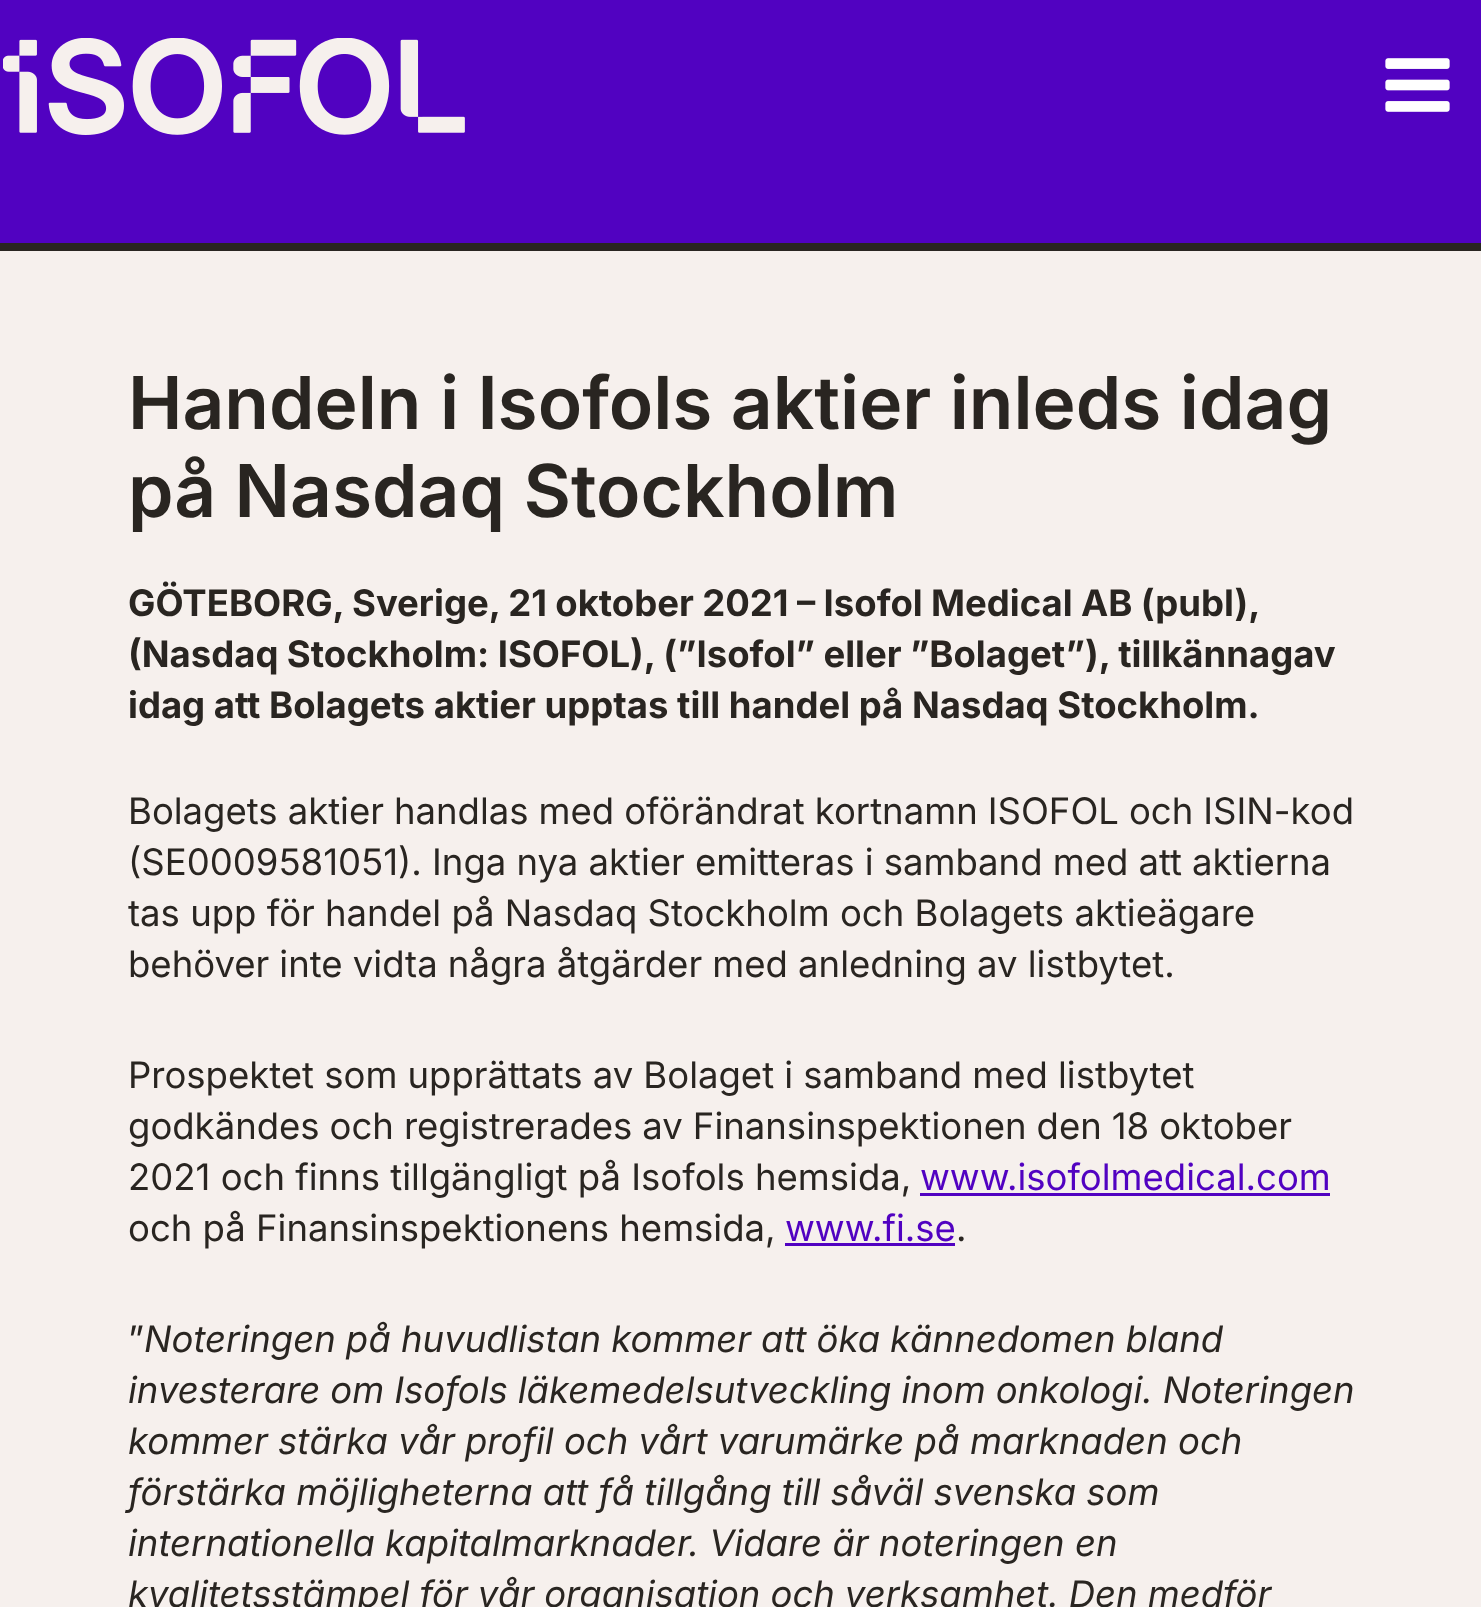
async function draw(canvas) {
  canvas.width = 1481;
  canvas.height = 1607;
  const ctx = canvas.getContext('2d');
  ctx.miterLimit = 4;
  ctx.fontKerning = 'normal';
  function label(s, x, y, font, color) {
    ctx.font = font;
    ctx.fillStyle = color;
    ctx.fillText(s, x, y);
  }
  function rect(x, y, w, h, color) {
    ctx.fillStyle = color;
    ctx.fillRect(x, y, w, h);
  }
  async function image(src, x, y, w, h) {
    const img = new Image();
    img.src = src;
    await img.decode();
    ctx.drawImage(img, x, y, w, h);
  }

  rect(0, 0, 1481, 1607, '#f6f0ed');
  rect(0, 0, 1481, 243, '#5102c1');
  rect(0, 243, 1481, 8, '#292521');
  await image('assets/img1.png', 3, 38, 462, 97);
  await image('assets/img2.png', 1385, 58, 65, 54);
  label('Handeln i Isofols aktier inleds idag', 128, 429, '600 73px Inter', '#292521');
  label('på Nasdaq Stockholm', 128, 517, '600 73px Inter', '#292521');
  ctx.wordSpacing = '-0.25px';
  label('GÖTEBORG, Sverige, 21 oktober 2021 – Isofol Medical AB (publ),', 128, 616, 'bold 36.5px Inter', '#292521');
  label('(Nasdaq Stockholm: ISOFOL), (”Isofol” eller ”Bolaget”), tillkännagav', 128, 667, 'bold 36.5px Inter', '#292521');
  ctx.wordSpacing = '0px';
  label('idag att Bolagets aktier upptas till handel på Nasdaq Stockholm.', 128, 718, 'bold 36.5px Inter', '#292521');
  ctx.wordSpacing = '-0.25px';
  label('Bolagets aktier handlas med oförändrat kortnamn ISOFOL och ISIN-kod', 128, 824, '36.5px Inter', '#292521');
  ctx.wordSpacing = '-0.1px';
  label('(SE0009581051). Inga nya aktier emitteras i samband med att aktierna', 128, 875, '36.5px Inter', '#292521');
  ctx.wordSpacing = '0px';
  label('tas upp för handel på Nasdaq Stockholm och Bolagets aktieägare', 128, 926, '36.5px Inter', '#292521');
  ctx.wordSpacing = '-0.1px';
  label('behöver inte vidta några åtgärder med anledning av listbytet.', 128, 977, '36.5px Inter', '#292521');
  label('Prospektet som upprättats av Bolaget i samband med listbytet', 128, 1088, '36.5px Inter', '#292521');
  ctx.wordSpacing = '-0.25px';
  label('godkändes och registrerades av Finansinspektionen den 18 oktober', 128, 1139, '36.5px Inter', '#292521');
  ctx.wordSpacing = '0px';
  label('2021 och finns tillgängligt på Isofols hemsida,', 128, 1190, '36.5px Inter', '#292521');
  label('www.isofolmedical.com', 920, 1190, '36.5px Inter', '#5102c1');
  rect(920, 1193, 410, 3, '#5102c1');
  label('och på Finansinspektionens hemsida,', 128, 1241, '36.5px Inter', '#292521');
  label('www.fi.se', 785, 1241, '36.5px Inter', '#5102c1');
  label('.', 956, 1241, '36.5px Inter', '#292521');
  rect(785, 1243, 170, 3, '#5102c1');
  label('”', 128, 1352, '36.5px Inter', '#292521');
  ctx.wordSpacing = '-0.25px';
  label('Noteringen på huvudlistan kommer att öka kännedomen bland', 144, 1352, 'italic 36.5px Inter', '#292521');
  label('investerare om Isofols läkemedelsutveckling inom onkologi. Noteringen', 128, 1403, 'italic 36.5px Inter', '#292521');
  ctx.wordSpacing = '0px';
  label('kommer stärka vår profil och vårt varumärke på marknaden och', 128, 1454, 'italic 36.5px Inter', '#292521');
  label('förstärka möjligheterna att få tillgång till såväl svenska som', 128, 1505, 'italic 36.5px Inter', '#292521');
  label('internationella kapitalmarknader. Vidare är noteringen en', 128, 1556, 'italic 36.5px Inter', '#292521');
  ctx.wordSpacing = '-0.25px';
  label('kvalitetsstämpel för vår organisation och verksamhet. Den medför', 128, 1607, 'italic 36.5px Inter', '#292521');
}

draw(document.querySelector('canvas'));
